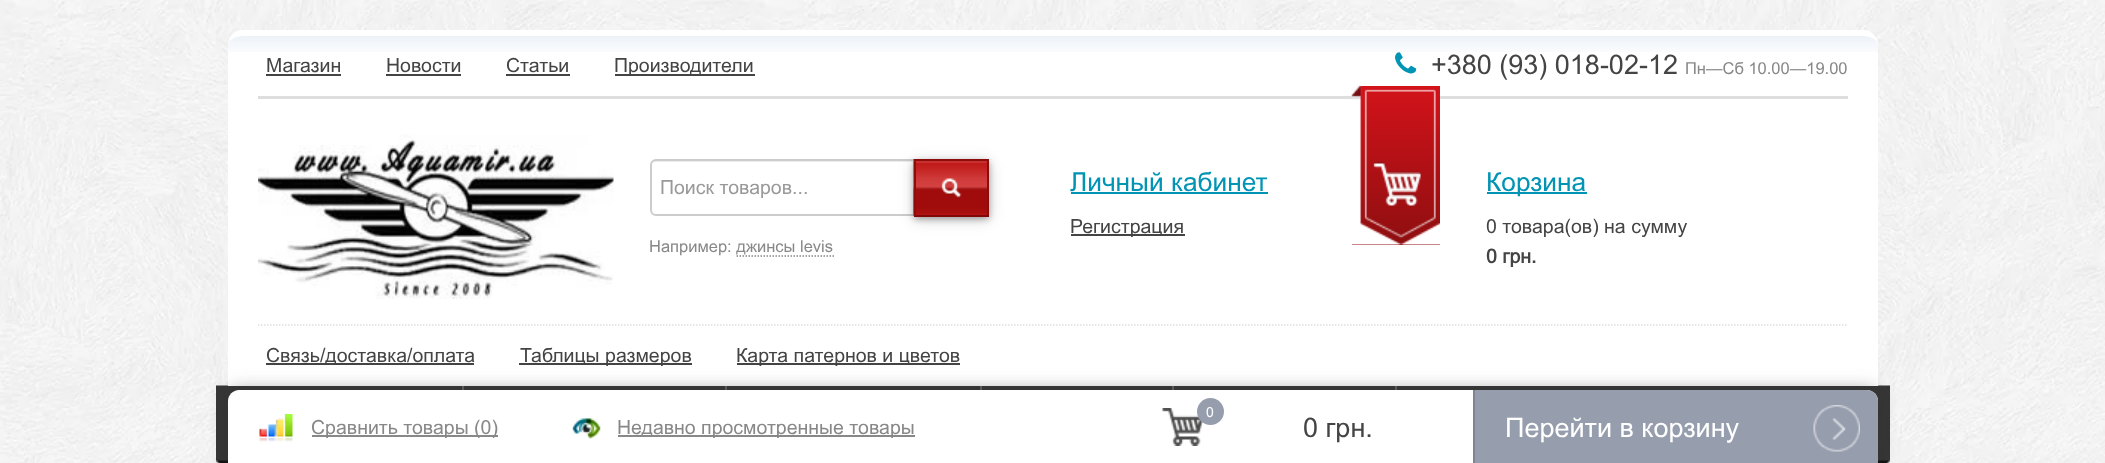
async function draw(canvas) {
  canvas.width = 2105;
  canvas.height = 463;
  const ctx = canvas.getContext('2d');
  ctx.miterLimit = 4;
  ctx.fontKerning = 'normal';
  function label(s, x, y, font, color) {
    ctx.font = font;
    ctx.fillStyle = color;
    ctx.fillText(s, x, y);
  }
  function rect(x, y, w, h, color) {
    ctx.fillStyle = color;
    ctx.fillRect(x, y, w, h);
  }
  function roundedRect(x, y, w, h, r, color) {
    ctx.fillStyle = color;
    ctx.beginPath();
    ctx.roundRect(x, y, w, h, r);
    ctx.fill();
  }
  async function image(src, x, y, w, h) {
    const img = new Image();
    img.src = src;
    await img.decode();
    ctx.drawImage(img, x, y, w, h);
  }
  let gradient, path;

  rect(0, 0, 2105, 463, '#fff');
  await image('assets/img1.png', 0, 0, 2105, 463);
  roundedRect(228, 30, 1650, 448, 15, '#fff');
  await image('assets/img2.png', 228, 36, 1650, 16);
  path = new Path2D('M243 30C235 30 228 37 228 45C228 40 235 36 243 36H1863C1871 36 1878 40 1878 45C1878 37 1871 30 1863 30Z');
  ctx.fill(path);
  rect(258, 96, 1590, 3, '#dedede');
  label('Магазин', 266, 72, '19.5px Arial', '#444');
  rect(266, 74, 75, 2, '#444');
  label('Новости', 386, 72, '19.5px Arial', '#444');
  rect(386, 74, 75, 2, '#444');
  label('Статьи', 506, 72, '19.5px Arial', '#444');
  rect(506, 74, 64, 2, '#444');
  rect(615, 74, 140, 2, '#444');
  label('Производители', 614, 72, '19.5px Arial', '#444');
  await image('assets/img3.png', 1395, 52, 22, 22);
  label('+380 (93) 018-02-12', 1431, 74, '27px Arial', '#444');
  label('Пн—Сб 10.00—19.00', 1685, 74, '16.5px Arial', '#888');
  await image('assets/img4.png', 258, 134, 356, 165);
  ctx.fillStyle = '#ececec';
  path = new Path2D('M656 162H914V161H656C653 161 651 163 651 166C651 164 653 162 656 162Z');
  ctx.fill(path);
  ctx.beginPath();
  ctx.roundRect(651, 160, 263, 55, [5, 0, 0, 5]);
  ctx.strokeStyle = '#ccc';
  ctx.lineWidth = 2;
  ctx.stroke();
  label('Поиск товаров...', 660, 194, '19.5px Arial', '#999');
  ctx.fillStyle = '#0000004d';
  ctx.filter = 'blur(3px)';
  ctx.beginPath();
  ctx.rect(914, 162, 75, 57);
  ctx.fill();
  ctx.filter = 'none';
  ctx.fillStyle = '#00000033';
  ctx.filter = 'blur(7.5px)';
  ctx.beginPath();
  ctx.rect(914, 162, 75, 57);
  ctx.fill();
  ctx.filter = 'none';
  await image('assets/img5.png', 913, 159, 74, 57);
  rect(915, 161, 72, 2, '#c63130');
  rect(914, 159, 75, 2, '#8d0c0c');
  rect(987, 159, 2, 57, '#8d0c0c');
  rect(914, 215, 75, 2, '#810808');
  rect(914, 159, 2, 57, '#8d0c0c');
  await image('assets/img6.png', 941, 178, 21, 20);
  label('Например: джинсы levis', 649, 252, '16.5px Arial', '#888');
  path = new Path2D('M736.5 256H834');
  ctx.strokeStyle = '#888';
  ctx.lineWidth = 1.5;
  ctx.setLineDash([1.5, 1.5]);
  ctx.stroke(path);
  label('Личный кабинет', 1070, 191, '26.25px Arial', '#0194b4');
  rect(1071, 192, 197, 2, '#0194b4');
  rect(1071, 234, 114, 2, '#444');
  label('Регистрация', 1070, 233, '19.5px Arial', '#444');
  gradient = ctx.createLinearGradient(1396, 85, 1396, 245);
  gradient.addColorStop(0, '#d3131a');
  gradient.addColorStop(1, '#8e0e10');
  ctx.fillStyle = gradient;
  ctx.fillRect(1352, 86, 88, 159);
  await image('assets/img7.png', 1351, 85, 89, 160);
  rect(1487, 192, 100, 2, '#0194b4');
  label('Корзина', 1486, 191, '26.25px Arial', '#0194b4');
  label('0 товара(ов) на сумму', 1486, 233, '19.5px Arial', '#444');
  label('0 грн.', 1486, 263, 'bold 19.5px Arial', '#444');
  path = new Path2D('M258 325H1848');
  ctx.strokeStyle = '#dedede';
  ctx.stroke(path);
  rect(266, 363, 208, 2, '#444');
  label('Связь/доставка/оплата', 266, 362, '19.5px Arial', '#444');
  rect(519, 363, 173, 2, '#444');
  label('Таблицы размеров', 520, 362, '19.5px Arial', '#444');
  rect(737, 363, 223, 2, '#444');
  label('Карта патернов и цветов', 736, 362, '19.5px Arial', '#444');
  await image('assets/img8.png', 216, 385, 12, 78);
  await image('assets/img9.png', 1878, 385, 12, 78);
  ctx.fillStyle = '#32323285';
  ctx.filter = 'blur(9px)';
  ctx.beginPath();
  ctx.rect(231, 396, 1644, 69);
  ctx.fill();
  ctx.filter = 'none';
  rect(228, 386, 1650, 15, '#363636');
  rect(462, 386, 2, 4, '#5f5f5f');
  rect(725, 386, 2, 4, '#5f5f5f');
  rect(980, 386, 2, 4, '#5f5f5f');
  rect(1172, 386, 2, 4, '#5f5f5f');
  rect(1395, 386, 2, 4, '#5f5f5f');
  ctx.fillStyle = '#32323233';
  ctx.filter = 'blur(9px)';
  ctx.beginPath();
  ctx.roundRect(228, 387, 1650, 75, 11);
  ctx.fill();
  ctx.filter = 'none';
  ctx.fillStyle = '#fff';
  path = new Path2D('M239 390H1867C1873 390 1878 395 1878 401V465H228V401C228 395 233 390 239 390Z');
  ctx.fill(path);
  await image('assets/img10.png', 259, 414, 34, 28);
  rect(312, 435, 186, 2, '#888');
  label('Сравнить товары (0)', 311, 434, '19.5px Arial', '#888');
  await image('assets/img11.png', 572, 418, 29, 21);
  rect(618, 435, 297, 2, '#888');
  label('Недавно просмотренные товары', 617, 434, '19.5px Arial', '#888');
  await image('assets/img12.png', 1162, 408, 41, 38);
  ctx.fillStyle = '#969dad';
  ctx.beginPath();
  ctx.arc(1210.5, 411.5, 13.5, 0, 2 * Math.PI);
  ctx.fill();
  label('0', 1206, 417, '14px Arial', '#fff');
  label('0 грн.', 1303, 437, '27px Arial', '#444');
  ctx.fillStyle = '#969dad';
  path = new Path2D('M1473 390H1867C1873 390 1878 395 1878 401V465H1473Z');
  ctx.fill(path);
  rect(1473, 390, 2, 73, '#7e8496');
  await image('assets/img13.png', 1813, 405, 47, 47);
  label('Перейти в корзину', 1505, 437, '27px Arial', '#fff');
}

draw(document.querySelector('canvas'));
